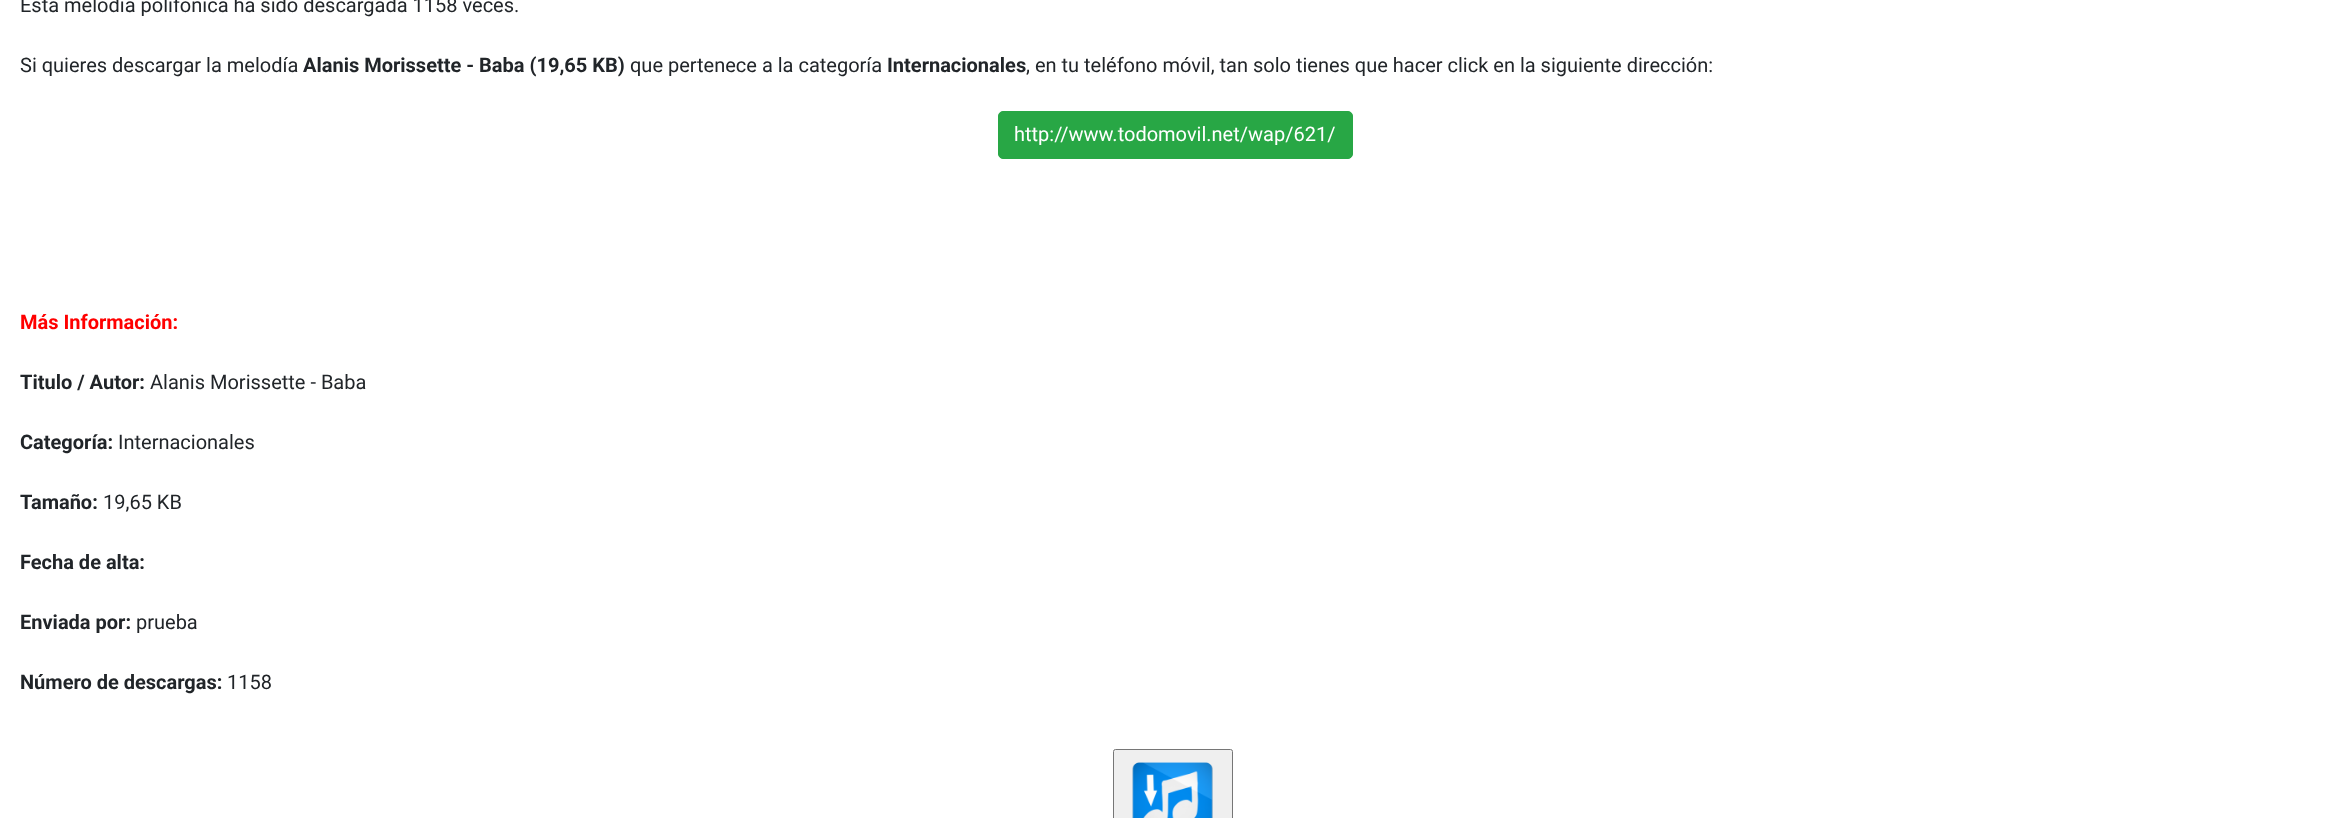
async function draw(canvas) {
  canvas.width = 2344;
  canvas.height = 818;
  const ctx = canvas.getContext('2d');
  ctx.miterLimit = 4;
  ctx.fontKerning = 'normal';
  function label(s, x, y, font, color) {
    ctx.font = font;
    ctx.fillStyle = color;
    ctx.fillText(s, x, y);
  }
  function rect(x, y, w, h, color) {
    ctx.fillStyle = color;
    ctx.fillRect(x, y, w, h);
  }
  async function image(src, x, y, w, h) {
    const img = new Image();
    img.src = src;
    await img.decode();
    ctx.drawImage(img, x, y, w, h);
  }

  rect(0, 0, 2344, 818, '#fff');
  label('Esta melodía polifónica ha sido descargada 1158 veces.', 20, 12, '20px Roboto', '#212529');
  label('Si quieres descargar la melodía', 20, 72, '20px Roboto', '#212529');
  label('Alanis Morissette - Baba (19,65 KB)', 303, 72, 'bold 20px Roboto', '#212529');
  label('que pertenece a la categoría', 630, 72, '20px Roboto', '#212529');
  label('Internacionales', 887, 72, 'bold 20px Roboto', '#212529');
  label(', en tu teléfono móvil, tan solo tienes que hacer click en la siguiente dirección:', 1026, 72, '20px Roboto', '#212529');
  ctx.fillStyle = '#28a745';
  ctx.beginPath();
  ctx.roundRect(998.5, 111.5, 354, 47, 4.5);
  ctx.fill();
  ctx.strokeStyle = '#28a745';
  ctx.stroke();
  label('http://www.todomovil.net/wap/621/', 1014, 141, '20px Roboto', '#fff');
  label('Más Información:', 20, 329, 'bold 20px Roboto', '#f00');
  label('Titulo / Autor:', 20, 389, 'bold 20px Roboto', '#212529');
  label('Alanis Morissette - Baba', 150, 389, '20px Roboto', '#212529');
  label('Categoría:', 20, 449, 'bold 20px Roboto', '#212529');
  label('Internacionales', 118, 449, '20px Roboto', '#212529');
  label('Tamaño:', 20, 509, 'bold 20px Roboto', '#212529');
  label('19,65 KB', 103, 509, '20px Roboto', '#212529');
  label('Fecha de alta:', 20, 569, 'bold 20px Roboto', '#212529');
  label('Enviada por:', 20, 629, 'bold 20px Roboto', '#212529');
  label('prueba', 136, 629, '20px Roboto', '#212529');
  label('Número de descargas:', 20, 689, 'bold 20px Roboto', '#212529');
  label('1158', 227, 689, '20px Roboto', '#212529');
  ctx.fillStyle = '#efefef';
  ctx.beginPath();
  ctx.roundRect(1113.5, 749.5, 119, 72, 2);
  ctx.fill();
  ctx.strokeStyle = '#767676';
  ctx.stroke();
  await image('assets/img1.png', 1132, 762, 81, 56);
}

draw(document.querySelector('canvas'));
